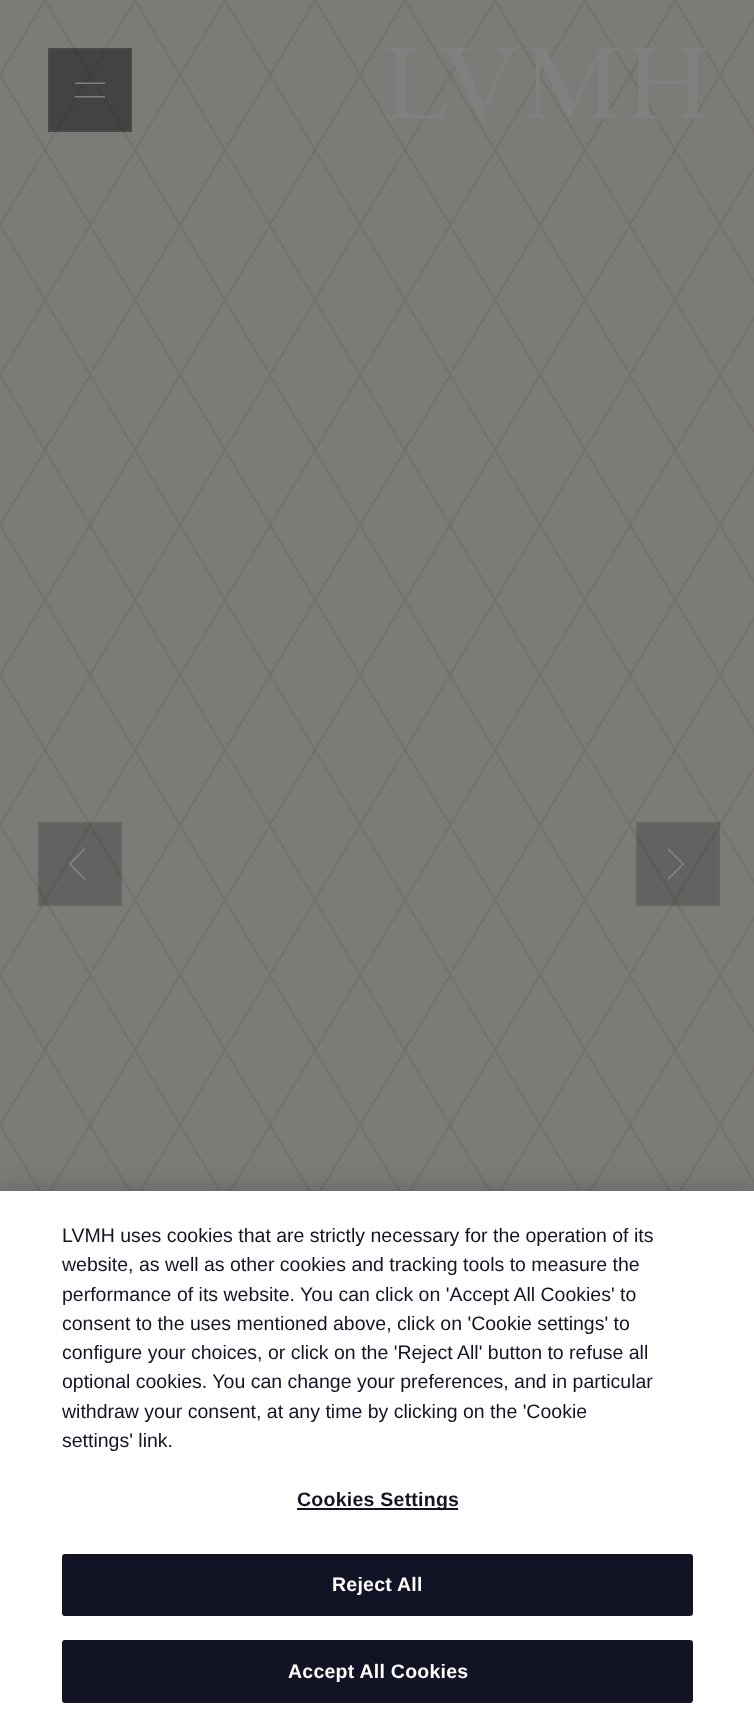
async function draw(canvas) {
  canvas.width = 754;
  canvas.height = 1726;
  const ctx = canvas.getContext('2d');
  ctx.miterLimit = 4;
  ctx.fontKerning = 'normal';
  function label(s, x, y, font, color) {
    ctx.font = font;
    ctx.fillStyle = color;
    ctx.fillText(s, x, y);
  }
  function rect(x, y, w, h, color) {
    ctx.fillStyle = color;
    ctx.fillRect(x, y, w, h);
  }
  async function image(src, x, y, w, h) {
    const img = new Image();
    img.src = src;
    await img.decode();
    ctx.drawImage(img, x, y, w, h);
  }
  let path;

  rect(0, 0, 754, 1726, '#7c7b78');
  await image('assets/img1.png', 0, 0, 754, 1191);
  rect(48, 48, 84, 84, '#00000073');
  ctx.strokeStyle = '#8080801a';
  ctx.lineWidth = 2;
  ctx.strokeRect(49, 49, 82, 82);
  ctx.fillStyle = '#808080';
  path = new Path2D('M75 84H105V82.5H75ZM75 97.5H105V96H75Z');
  ctx.fill(path, 'evenodd');
  await image('assets/img2.png', 386, 48, 321, 72);
  rect(38, 822, 84, 84, '#00000033');
  ctx.strokeRect(39, 823, 82, 82);
  ctx.fillStyle = '#808080';
  path = new Path2D('M84 879.5L68.5 864L84 848.5L85.5 849.5L71 864L85.5 878.5Z');
  ctx.fill(path, 'evenodd');
  rect(636, 822, 84, 84, '#00000033');
  ctx.strokeRect(637, 823, 82, 82);
  ctx.fillStyle = '#808080';
  path = new Path2D('M669 848.5L684.5 864L669 879.5L667.5 878.5L682 864L667.5 849.5Z');
  ctx.fill(path, 'evenodd');
  ctx.fillStyle = '#00000033';
  ctx.filter = 'blur(13.5px)';
  ctx.beginPath();
  ctx.rect(0, 1191, 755, 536);
  ctx.fill();
  ctx.filter = 'none';
  rect(0, 1191, 754, 535, '#fff');
  label('LVMH uses cookies that are strictly necessary for the operation of its', 62, 1242, '19.5px Liberation Sans', '#121426');
  label('website, as well as other cookies and tracking tools to measure the', 62, 1271, '19.5px Liberation Sans', '#121426');
  label('performance of its website. You can click on \'Accept All Cookies\' to', 62, 1301, '19.5px Liberation Sans', '#121426');
  label('consent to the uses mentioned above, click on \'Cookie settings\' to', 62, 1330, '19.5px Liberation Sans', '#121426');
  label('configure your choices, or click on the \'Reject All\' button to refuse all', 62, 1359, '19.5px Liberation Sans', '#121426');
  label('optional cookies. You can change your preferences, and in particular', 62, 1388, '19.5px Liberation Sans', '#121426');
  label('withdraw your consent, at any time by clicking on the \'Cookie', 62, 1418, '19.5px Liberation Sans', '#121426');
  label('settings\' link.', 62, 1447, '19.5px Liberation Sans', '#121426');
  rect(297, 1508, 161, 2, '#121426');
  ctx.letterSpacing = '0.25px';
  label('Cookies Settings', 297, 1506, 'bold 19.5px Liberation Sans', '#121426');
  ctx.beginPath();
  ctx.roundRect(63, 1555, 629, 60, 2);
  ctx.fill();
  ctx.strokeStyle = '#121426';
  ctx.stroke();
  label('Reject All', 332, 1591, 'bold 19.5px Liberation Sans', '#fff');
  ctx.fillStyle = '#121426';
  ctx.beginPath();
  ctx.roundRect(63, 1641, 629, 61, 2);
  ctx.fill();
  ctx.stroke();
  label('Accept All Cookies', 288, 1678, 'bold 19.5px Liberation Sans', '#fff');
}

draw(document.querySelector('canvas'));
